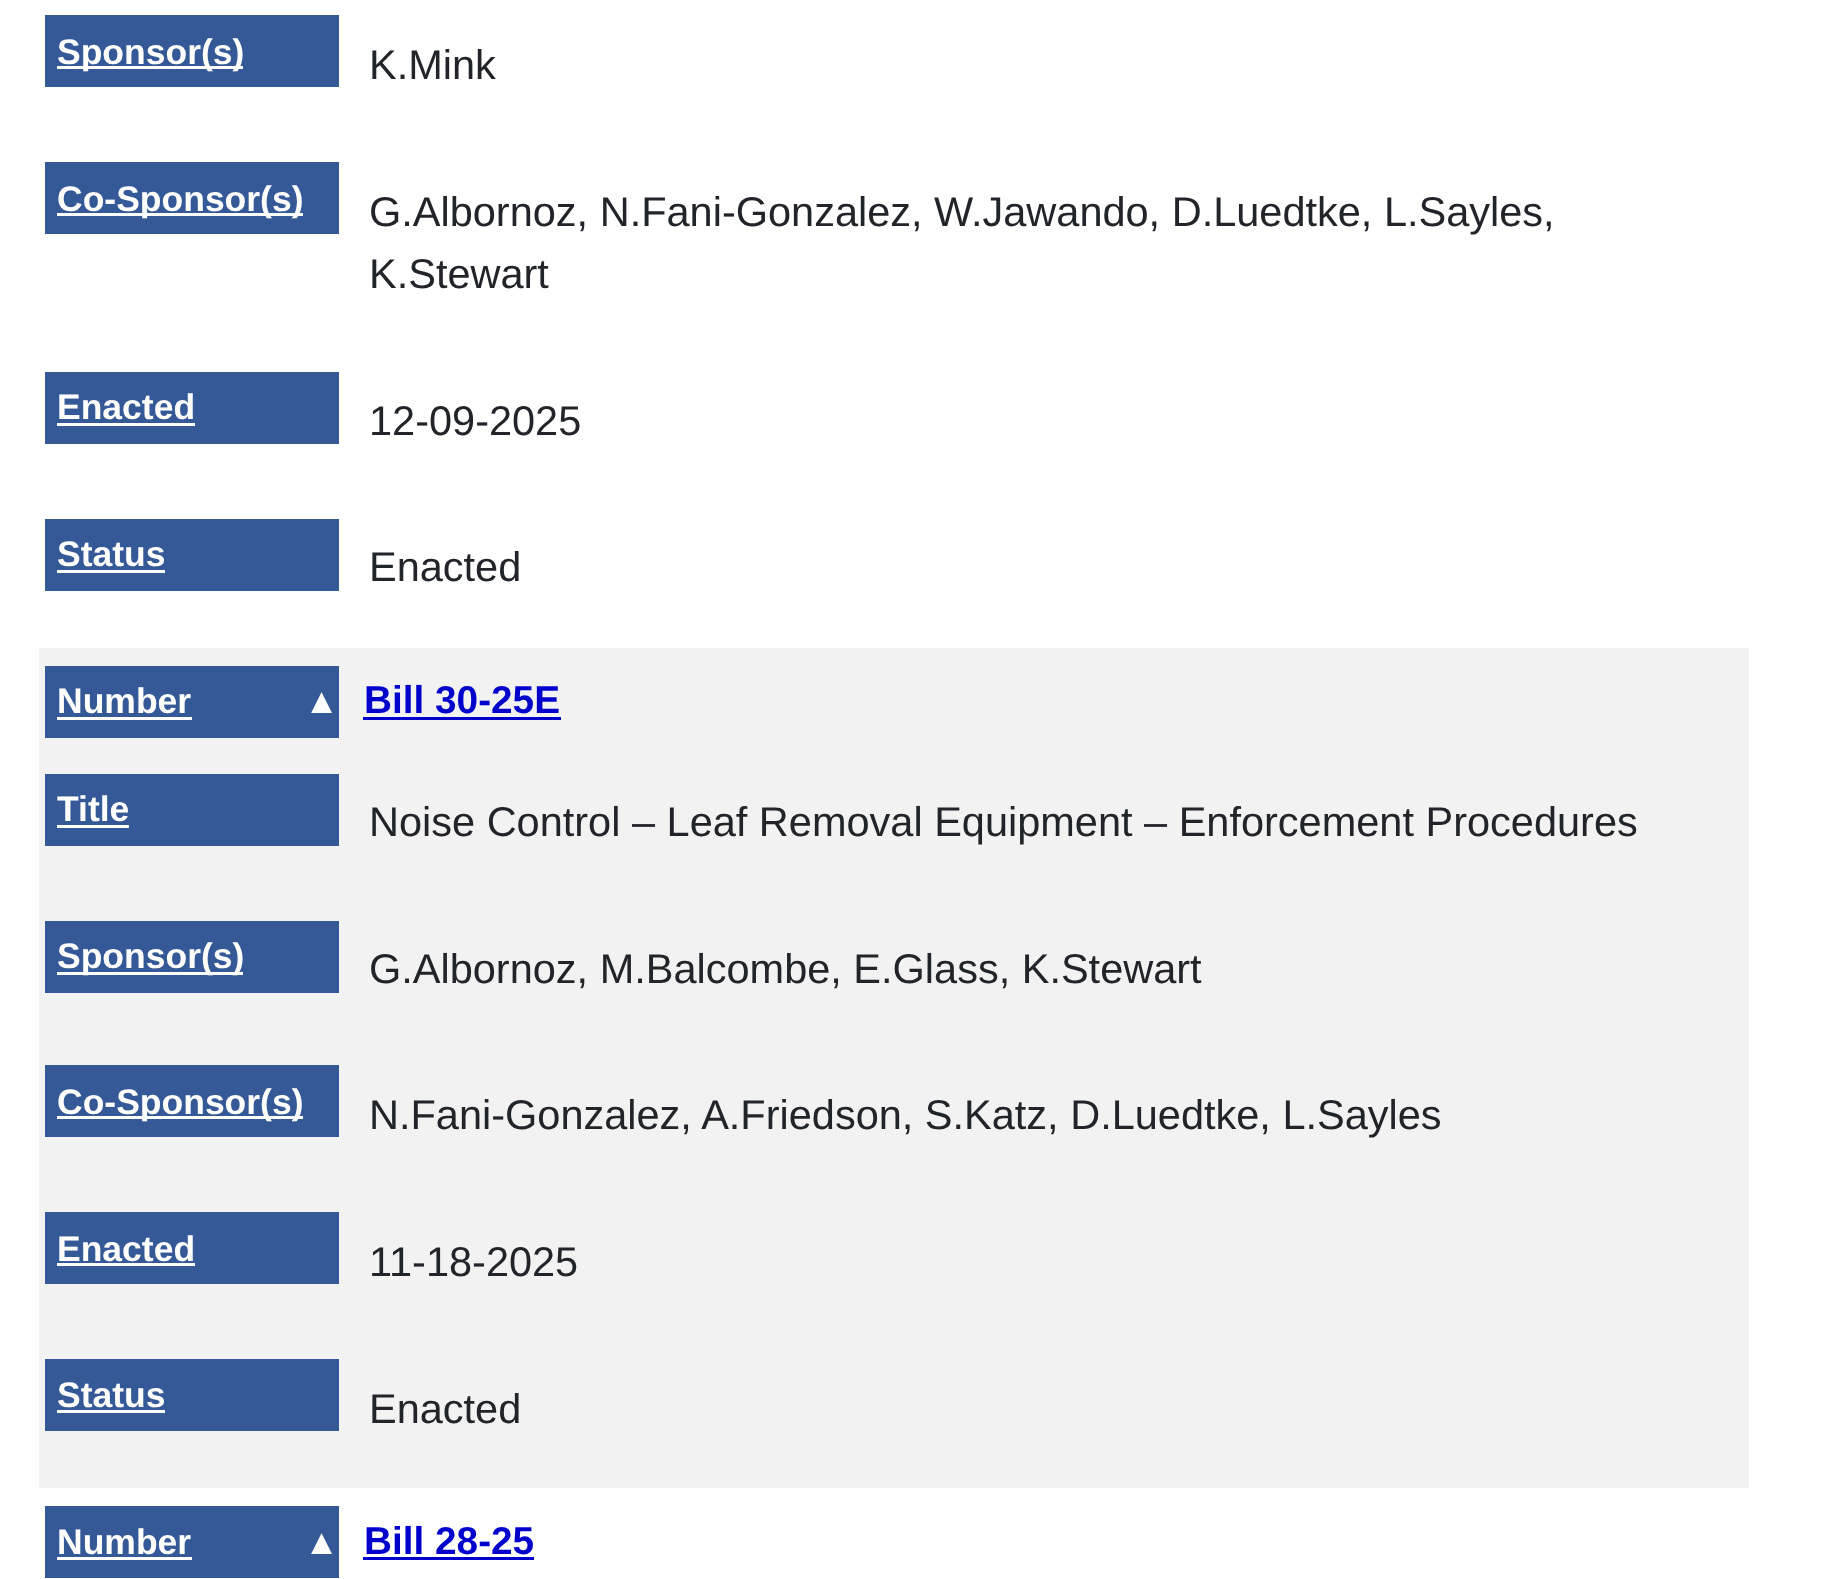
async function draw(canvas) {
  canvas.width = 1828;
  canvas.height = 1579;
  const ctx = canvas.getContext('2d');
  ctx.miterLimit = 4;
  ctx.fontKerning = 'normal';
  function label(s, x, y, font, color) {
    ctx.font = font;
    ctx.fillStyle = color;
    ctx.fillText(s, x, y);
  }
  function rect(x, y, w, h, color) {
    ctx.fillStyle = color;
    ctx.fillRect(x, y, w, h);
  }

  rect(0, 0, 1828, 1579, '#fff');
  rect(45, 15, 294, 72, '#355997');
  rect(57, 66, 186, 3, '#fff');
  label('Sponsor(s)', 57, 64, 'bold 35.5px Liberation Sans', '#fff');
  label('K.Mink', 369, 79, '41.5px Liberation Sans', '#212529');
  rect(45, 162, 294, 72, '#355997');
  rect(57, 213, 246, 3, '#fff');
  label('Co-Sponsor(s)', 57, 211, 'bold 35.5px Liberation Sans', '#fff');
  label('G.Albornoz, N.Fani-Gonzalez, W.Jawando, D.Luedtke, L.Sayles,', 369, 226, '41.5px Liberation Sans', '#212529');
  label('K.Stewart', 369, 288, '41.5px Liberation Sans', '#212529');
  rect(45, 372, 294, 72, '#355997');
  label('Enacted', 57, 419, 'bold 35.5px Liberation Sans', '#fff');
  rect(57, 423, 138, 3, '#fff');
  label('12-09-2025', 369, 435, '41.5px Liberation Sans', '#212529');
  rect(45, 519, 294, 72, '#355997');
  label('Status', 57, 566, 'bold 35.5px Liberation Sans', '#fff');
  rect(57, 570, 108, 3, '#fff');
  label('Enacted', 369, 581, '41.5px Liberation Sans', '#212529');
  rect(39, 648, 1710, 840, '#f2f2f2');
  rect(45, 666, 294, 72, '#355997');
  label('Number', 57, 713, 'bold 35.5px Liberation Sans', '#fff');
  rect(57, 717, 135, 3, '#fff');
  label('▲', 304, 713, 'bold 35.5px Liberation Sans', '#fff');
  label('Bill 30-25E', 364, 713, 'bold 38.75px Liberation Sans', '#0000cd');
  rect(363, 717, 198, 3, '#0000cd');
  rect(45, 774, 294, 72, '#355997');
  label('Title', 57, 821, 'bold 35.5px Liberation Sans', '#fff');
  rect(57, 825, 72, 3, '#fff');
  label('Noise Control – Leaf Removal Equipment – Enforcement Procedures', 369, 836, '41.5px Liberation Sans', '#212529');
  rect(45, 921, 294, 72, '#355997');
  rect(57, 972, 186, 3, '#fff');
  label('Sponsor(s)', 57, 968, 'bold 35.5px Liberation Sans', '#fff');
  label('G.Albornoz, M.Balcombe, E.Glass, K.Stewart', 369, 983, '41.5px Liberation Sans', '#212529');
  rect(45, 1065, 294, 72, '#355997');
  rect(57, 1116, 246, 3, '#fff');
  label('Co-Sponsor(s)', 57, 1114, 'bold 35.5px Liberation Sans', '#fff');
  label('N.Fani-Gonzalez, A.Friedson, S.Katz, D.Luedtke, L.Sayles', 369, 1129, '41.5px Liberation Sans', '#212529');
  rect(45, 1212, 294, 72, '#355997');
  label('Enacted', 57, 1261, 'bold 35.5px Liberation Sans', '#fff');
  rect(57, 1263, 138, 3, '#fff');
  label('11-18-2025', 369, 1276, '41.5px Liberation Sans', '#212529');
  rect(45, 1359, 294, 72, '#355997');
  label('Status', 57, 1407, 'bold 35.5px Liberation Sans', '#fff');
  rect(57, 1410, 108, 3, '#fff');
  label('Enacted', 369, 1423, '41.5px Liberation Sans', '#212529');
  rect(45, 1506, 294, 72, '#355997');
  label('Number', 57, 1554, 'bold 35.5px Liberation Sans', '#fff');
  rect(57, 1557, 135, 3, '#fff');
  label('▲', 304, 1554, 'bold 35.5px Liberation Sans', '#fff');
  label('Bill 28-25', 364, 1554, 'bold 38.75px Liberation Sans', '#0000cd');
  rect(363, 1557, 171, 3, '#0000cd');
}

draw(document.querySelector('canvas'));
